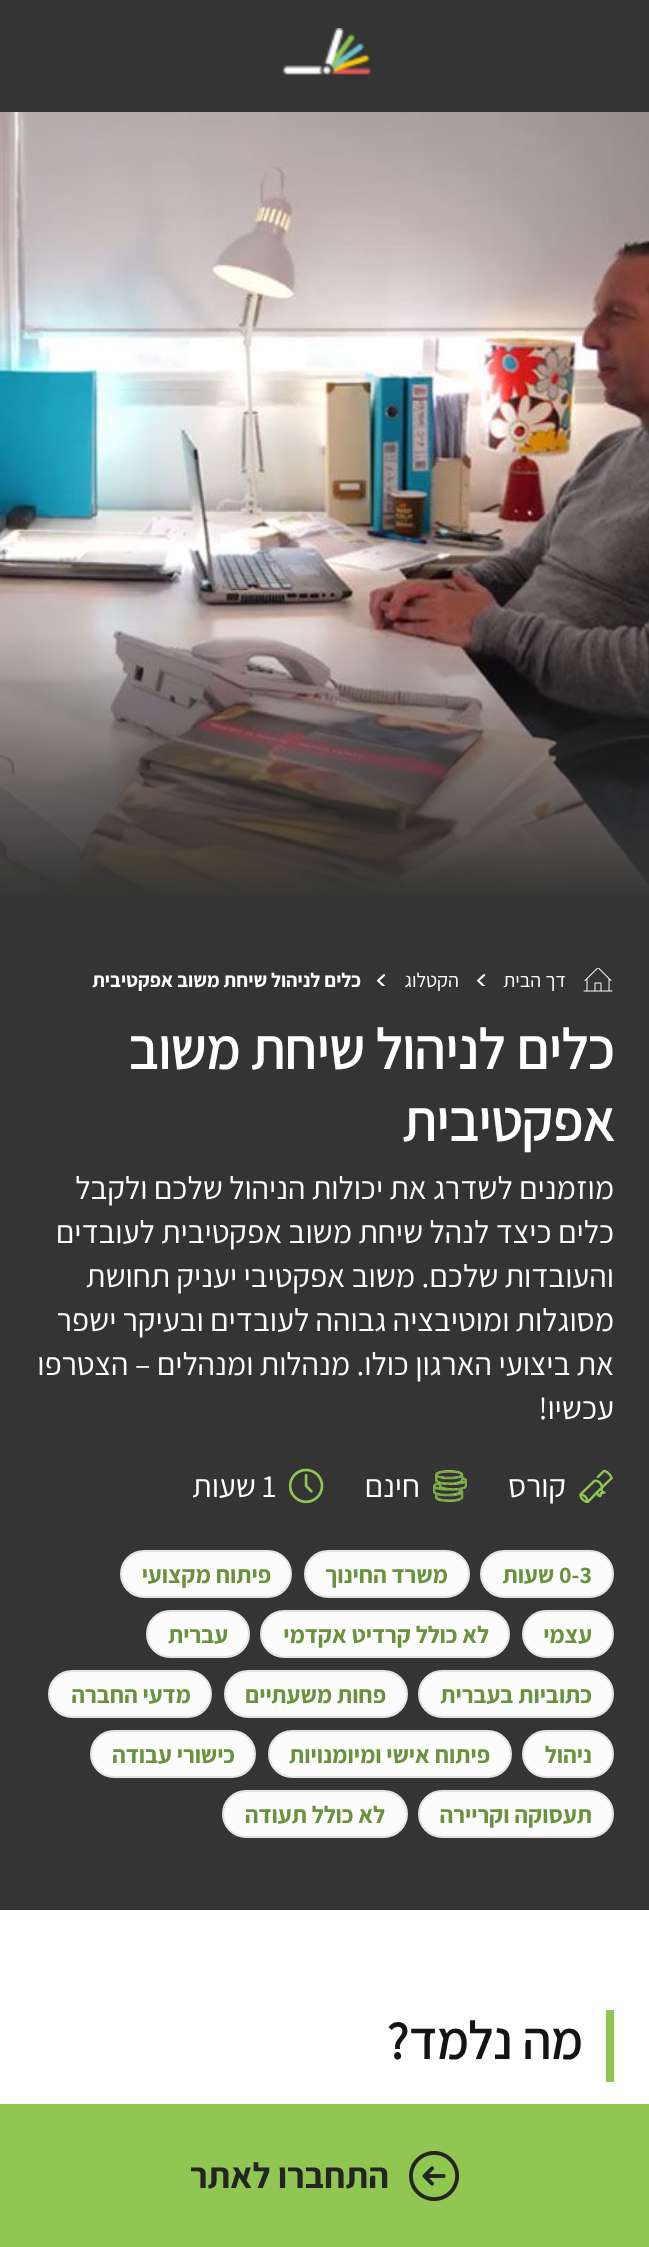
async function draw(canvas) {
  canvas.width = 649;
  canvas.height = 2247;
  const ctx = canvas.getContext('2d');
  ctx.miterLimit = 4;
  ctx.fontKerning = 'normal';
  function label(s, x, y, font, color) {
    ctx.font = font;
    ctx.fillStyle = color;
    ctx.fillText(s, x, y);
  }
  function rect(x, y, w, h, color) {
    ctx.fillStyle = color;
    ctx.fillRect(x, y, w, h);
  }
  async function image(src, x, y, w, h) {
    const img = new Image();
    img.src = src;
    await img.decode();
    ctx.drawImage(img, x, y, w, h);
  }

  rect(0, 0, 649, 2247, '#fff');
  rect(0, 0, 649, 112, '#333433');
  await image('assets/img1.png', 282, 28, 90, 47);
  rect(0, 900, 649, 1010, '#333433');
  await image('assets/img2.png', 0, 112, 649, 788);
  await image('assets/img3.png', 583, 968, 30, 24);
  await image('assets/img4.png', 476, 974, 10, 12);
  ctx.direction = 'rtl';
  label('דך הבית', 566, 987, '20px Assistant', '#fff');
  await image('assets/img4.png', 376, 974, 10, 12);
  label('הקטלוג', 459, 987, '20px Assistant', '#fff');
  label('כלים לניהול שיחת משוב אפקטיבית', 361, 987, 'bold 20px Assistant', '#fff');
  label('כלים לניהול שיחת משוב', 614, 1069, 'bold 56px "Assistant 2"', '#fff');
  label('אפקטיבית', 614, 1141, 'bold 56px "Assistant 2"', '#fff');
  label('מוזמנים לשדרג את יכולות הניהול שלכם ולקבל', 614, 1199, '32px Assistant', '#fff');
  label('כלים כיצד לנהל שיחת משוב אפקטיבית לעובדים', 614, 1243, '32px Assistant', '#fff');
  label('והעובדות שלכם. משוב אפקטיבי יעניק תחושת', 614, 1287, '32px Assistant', '#fff');
  label('מסוגלות ומוטיבציה גבוהה לעובדים ובעיקר ישפר', 614, 1331, '32px Assistant', '#fff');
  label('את ביצועי הארגון כולו. מנהלות ומנהלים – הצטרפו', 614, 1375, '32px Assistant', '#fff');
  label('עכשיו!', 614, 1419, '32px Assistant', '#fff');
  await image('assets/img5.png', 579, 1469, 34, 34);
  label('קורס', 566, 1497, '32px Assistant', '#fff');
  await image('assets/img6.png', 433, 1470, 34, 32);
  label('חינם', 420, 1497, '32px Assistant', '#fff');
  await image('assets/img7.png', 288, 1468, 36, 36);
  ctx.direction = 'ltr';
  label('1', 262, 1497, '32px Assistant', '#fff');
  ctx.direction = 'rtl';
  label('שעות', 256, 1497, '32px Assistant', '#fff');
  ctx.fillStyle = '#fcfcfc';
  ctx.beginPath();
  ctx.roundRect(481, 1551, 132, 46, 23);
  ctx.fill();
  ctx.strokeStyle = '#e3e3e3';
  ctx.lineWidth = 2;
  ctx.stroke();
  ctx.direction = 'ltr';
  label('0-3', 559, 1583, 'bold 24px Assistant', '#6a923c');
  ctx.direction = 'rtl';
  label('שעות', 554, 1583, 'bold 24px Assistant', '#6a923c');
  ctx.fillStyle = '#fcfcfc';
  ctx.beginPath();
  ctx.roundRect(305, 1551, 164, 46, 23);
  ctx.fill();
  ctx.stroke();
  label('משרד החינוך', 448, 1583, 'bold 24px Assistant', '#6a923c');
  ctx.fillStyle = '#fcfcfc';
  ctx.beginPath();
  ctx.roundRect(121, 1551, 170, 46, 23);
  ctx.fill();
  ctx.stroke();
  label('פיתוח מקצועי', 271, 1583, 'bold 24px Assistant', '#6a923c');
  ctx.fillStyle = '#fcfcfc';
  ctx.beginPath();
  ctx.roundRect(523, 1611, 90, 46, 23);
  ctx.fill();
  ctx.stroke();
  label('עצמי', 592, 1643, 'bold 24px Assistant', '#6a923c');
  ctx.fillStyle = '#fcfcfc';
  ctx.beginPath();
  ctx.roundRect(261, 1611, 248, 46, 23);
  ctx.fill();
  ctx.stroke();
  label('לא כולל קרדיט אקדמי', 489, 1643, 'bold 24px Assistant', '#6a923c');
  ctx.fillStyle = '#fcfcfc';
  ctx.beginPath();
  ctx.roundRect(147, 1611, 102, 46, 23);
  ctx.fill();
  ctx.stroke();
  label('עברית', 228, 1643, 'bold 24px Assistant', '#6a923c');
  ctx.fillStyle = '#fcfcfc';
  ctx.beginPath();
  ctx.roundRect(419, 1671, 194, 46, 23);
  ctx.fill();
  ctx.stroke();
  label('כתוביות בעברית', 592, 1703, 'bold 24px Assistant', '#6a923c');
  ctx.fillStyle = '#fcfcfc';
  ctx.beginPath();
  ctx.roundRect(225, 1671, 182, 46, 23);
  ctx.fill();
  ctx.stroke();
  label('פחות משעתיים', 386, 1703, 'bold 24px Assistant', '#6a923c');
  ctx.fillStyle = '#fcfcfc';
  ctx.beginPath();
  ctx.roundRect(49, 1671, 162, 46, 23);
  ctx.fill();
  ctx.stroke();
  label('מדעי החברה', 191, 1703, 'bold 24px Assistant', '#6a923c');
  ctx.fillStyle = '#fcfcfc';
  ctx.beginPath();
  ctx.roundRect(523, 1731, 90, 46, 23);
  ctx.fill();
  ctx.stroke();
  label('ניהול', 592, 1763, 'bold 24px Assistant', '#6a923c');
  ctx.fillStyle = '#fcfcfc';
  ctx.beginPath();
  ctx.roundRect(269, 1731, 242, 46, 23);
  ctx.fill();
  ctx.stroke();
  label('פיתוח אישי ומיומנויות', 490, 1763, 'bold 24px Assistant', '#6a923c');
  ctx.fillStyle = '#fcfcfc';
  ctx.beginPath();
  ctx.roundRect(91, 1731, 164, 46, 23);
  ctx.fill();
  ctx.stroke();
  label('כישורי עבודה', 235, 1763, 'bold 24px Assistant', '#6a923c');
  ctx.fillStyle = '#fcfcfc';
  ctx.beginPath();
  ctx.roundRect(419, 1791, 194, 46, 23);
  ctx.fill();
  ctx.stroke();
  label('תעסוקה וקריירה', 592, 1823, 'bold 24px Assistant', '#6a923c');
  ctx.fillStyle = '#fcfcfc';
  ctx.beginPath();
  ctx.roundRect(223, 1791, 184, 46, 23);
  ctx.fill();
  ctx.stroke();
  label('לא כולל תעודה', 385, 1823, 'bold 24px Assistant', '#6a923c');
  rect(0, 2104, 649, 143, '#91c653');
  await image('assets/img8.png', 409, 2151, 51, 50);
  label('התחברו לאתר', 389, 2188, 'bold 36px Assistant', '#232523');
  rect(606, 2010, 8, 72, '#91c653');
  label('מה נלמד?', 582, 2059, 'bold 52px "Assistant 2"', '#141414');
}

draw(document.querySelector('canvas'));
